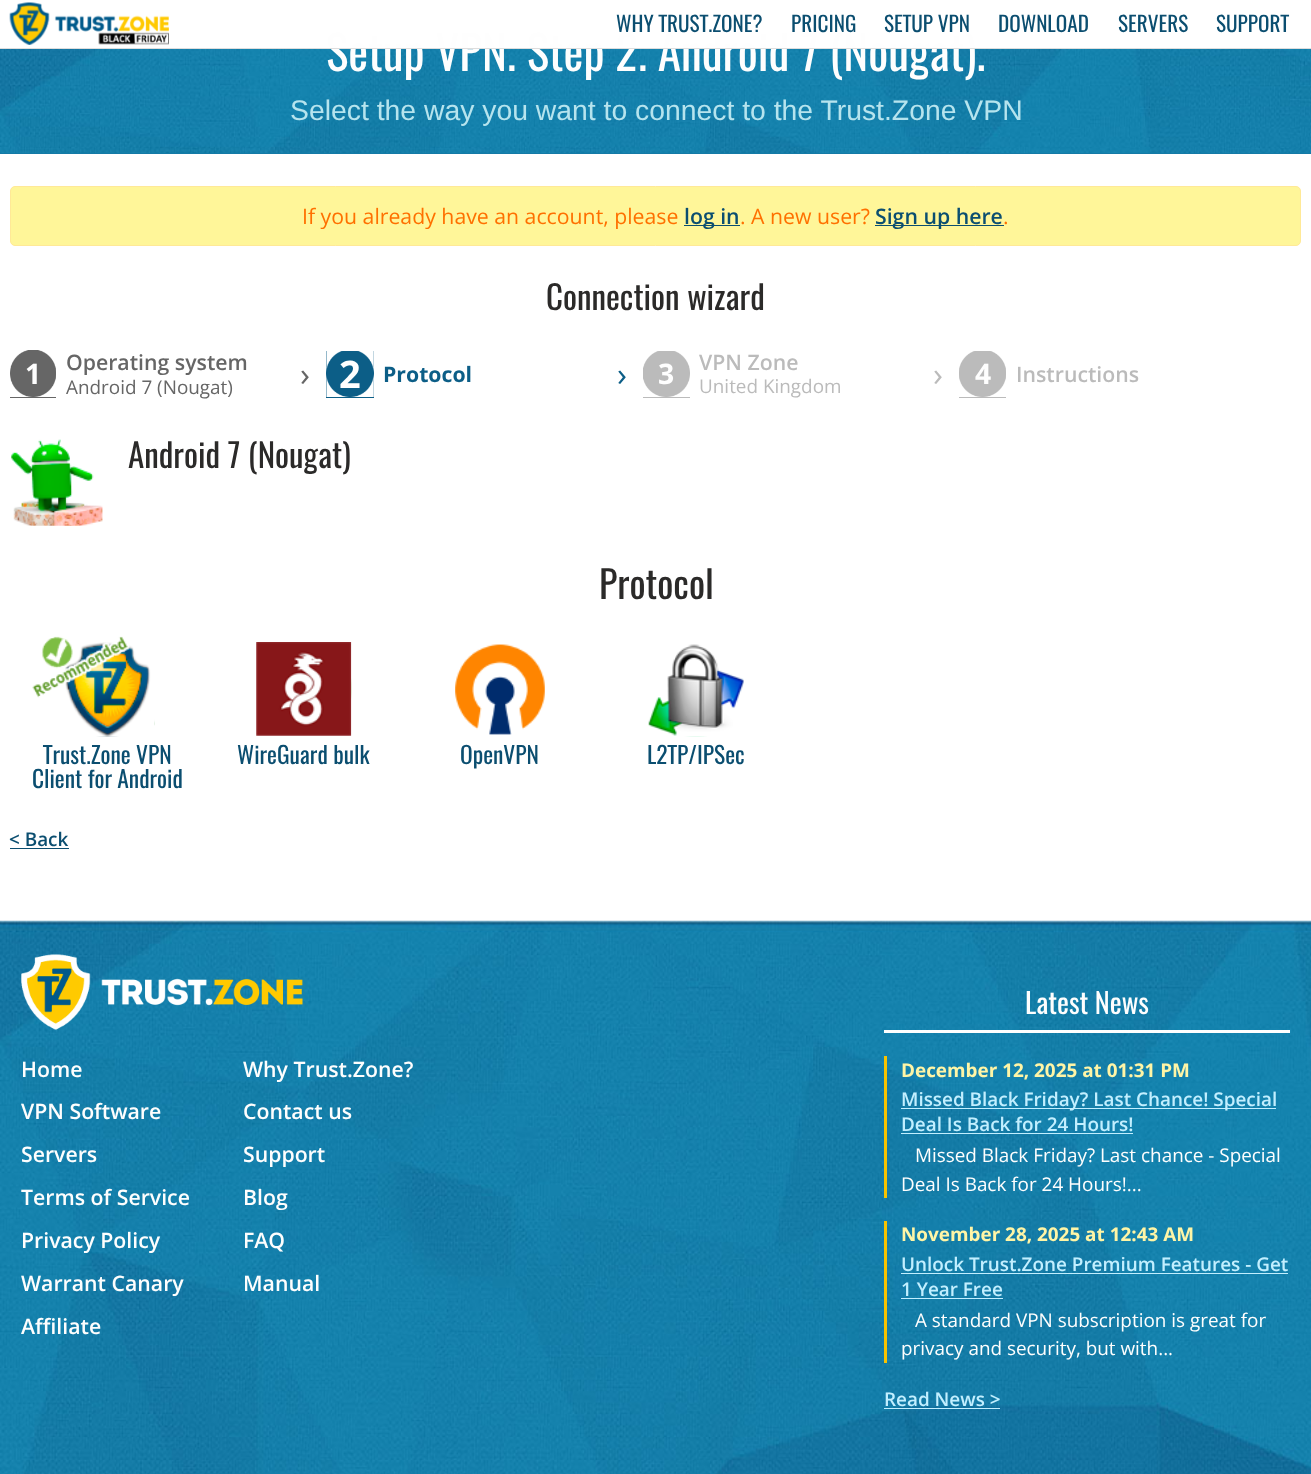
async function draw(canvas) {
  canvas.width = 1311;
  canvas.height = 1474;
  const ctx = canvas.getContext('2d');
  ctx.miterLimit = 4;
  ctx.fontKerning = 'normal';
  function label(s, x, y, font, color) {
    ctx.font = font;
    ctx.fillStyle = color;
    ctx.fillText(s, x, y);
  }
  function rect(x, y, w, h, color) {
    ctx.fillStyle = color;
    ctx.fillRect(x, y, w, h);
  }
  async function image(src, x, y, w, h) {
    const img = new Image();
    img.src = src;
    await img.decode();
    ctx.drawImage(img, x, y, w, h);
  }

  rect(0, 0, 1311, 1474, '#fff');
  await image('assets/img2.png', 0, 49, 1311, 104);
  label('Setup VPN. Step 2. Android 7 (Nougat).', 326, 71, '47.25px Oswald', '#fefefe');
  rect(0, 48, 1311, 1, '#ddd');
  await image('assets/img1.png', 9, 2, 160, 43);
  label('WHY TRUST.ZONE?', 616, 32, '21.25px Oswald', '#0b4e70');
  label('PRICING', 791, 32, '21.25px Oswald', '#0b4e70');
  label('SETUP VPN', 884, 32, '21.25px Oswald', '#0b4e70');
  label('DOWNLOAD', 998, 32, '21.25px Oswald', '#0b4e70');
  label('SERVERS', 1118, 32, '21.25px Oswald', '#0b4e70');
  label('SUPPORT', 1216, 32, '21.25px Oswald', '#0b4e70');
  rect(0, 153, 1311, 1, '#147aa6');
  label('Select the way you want to connect to the Trust.Zone VPN', 290, 120, '28.35px Liberation Sans', '#b6e4ee');
  ctx.fillStyle = '#fff699';
  ctx.beginPath();
  ctx.roundRect(10.5, 186.5, 1290, 59, 4.5);
  ctx.fill();
  ctx.strokeStyle = '#ffe997';
  ctx.stroke();
  label('If you already have an account, please', 302, 224, '21.25px Open Sans', '#ff7000');
  rect(684, 225, 56, 1, '#0b4e70');
  label('log in', 684, 224, '600 21.25px Open Sans', '#0b4e70');
  label('. A new user?', 740, 224, '21.25px Open Sans', '#ff7000');
  rect(875, 225, 129, 1, '#0b4e70');
  label('Sign up here', 875, 224, '600 21.25px Open Sans', '#0b4e70');
  label('.', 1003, 224, '21.25px Open Sans', '#ff7000');
  label('Connection wizard', 546, 310, '33px Oswald', '#2b2a29');
  rect(10, 350, 46, 48, '#666');
  await image('assets/img3.png', 10, 350, 46, 47);
  label('1', 25, 384, 'bold 28.35px Open Sans', '#fefefe');
  label('Operating system', 66, 370, '600 21.25px Open Sans', '#666');
  label('Android 7 (Nougat)', 66, 394, '18.9px Open Sans', '#666');
  label('›', 300, 386, '33px Open Sans', '#666');
  rect(326, 351, 48, 47, '#0c5e87');
  await image('assets/img4.png', 326, 351, 48, 46);
  label('2', 339, 388, 'bold 38px Open Sans', '#fefefe');
  label('Protocol', 383, 382, 'bold 21.25px Open Sans', '#0c5e87');
  label('›', 617, 386, '33px Open Sans', '#0c5e87');
  rect(643, 351, 47, 47, '#bbb');
  await image('assets/img5.png', 643, 351, 47, 46);
  label('3', 658, 384, 'bold 28.35px Open Sans', '#fefefe');
  label('VPN Zone', 699, 370, '600 21.25px Open Sans', '#bbb');
  label('United Kingdom', 699, 393, '18.9px Open Sans', '#bbb');
  label('›', 933, 386, '33px Open Sans', '#bbb');
  rect(959, 351, 47, 47, '#bbb');
  await image('assets/img6.png', 959, 351, 47, 46);
  label('4', 975, 384, 'bold 28.35px Open Sans', '#fefefe');
  label('Instructions', 1016, 382, '600 21.25px Open Sans', '#bbb');
  await image('assets/img7.png', 11, 439, 92, 87);
  label('Android 7 (Nougat)', 128, 468, '33px Oswald', '#2b2a29');
  label('Protocol', 599, 599, '38px Oswald', '#2b2a29');
  await image('assets/img9.png', 65, 642, 90, 95);
  await image('assets/img8.png', 32, 636, 98, 62);
  label('Trust.Zone VPN', 43, 764, '23.5px Oswald', '#0b4e70');
  label('Client for Android', 32, 788, '23.5px Oswald', '#0b4e70');
  await image('assets/img10.png', 256, 642, 96, 94);
  label('WireGuard bulk', 237, 764, '23.5px Oswald', '#0b4e70');
  await image('assets/img11.png', 455, 644, 90, 91);
  label('OpenVPN', 460, 764, '23.5px Oswald', '#0b4e70');
  await image('assets/img12.png', 648, 644, 96, 93);
  label('L2TP/IPSec', 647, 764, '23.5px Oswald', '#0b4e70');
  label('< Back', 9, 846, '600 18.9px Open Sans', '#0b4e70');
  rect(10, 848, 59, 1, '#0b4e70');
  await image('assets/img13.png', 0, 920, 1311, 554);
  await image('assets/img14.png', 21, 954, 282, 76);
  rect(884, 1030, 406, 3, '#fefefe');
  label('Latest News', 1025, 1014, '28.35px Oswald', '#fefefe');
  rect(884, 1056, 3, 142, '#f8c300');
  label('December 12, 2025 at 01:31 PM', 901, 1077, 'bold 18.9px Open Sans', '#fff5a6');
  rect(901, 1108, 375, 1, '#c2efff');
  label('Missed Black Friday? Last Chance! Special', 901, 1106, '600 18.9px Open Sans', '#c2efff');
  label('Deal Is Back for 24 Hours!', 901, 1131, '600 18.9px Open Sans', '#c2efff');
  rect(901, 1133, 232, 1, '#c2efff');
  label('Missed Black Friday? Last chance - Special', 915, 1162, '18.9px Open Sans', '#fefefe');
  label('Deal Is Back for 24 Hours!...', 901, 1191, '18.9px Open Sans', '#fefefe');
  rect(884, 1221, 3, 142, '#f8c300');
  label('November 28, 2025 at 12:43 AM', 901, 1241, 'bold 18.9px Open Sans', '#fff5a6');
  label('Unlock Trust.Zone Premium Features - Get', 901, 1271, '600 18.9px Open Sans', '#c2efff');
  rect(901, 1273, 387, 1, '#c2efff');
  label('1 Year Free', 901, 1296, '600 18.9px Open Sans', '#c2efff');
  rect(901, 1298, 102, 1, '#c2efff');
  label('A standard VPN subscription is great for', 915, 1327, '18.9px Open Sans', '#fefefe');
  label('privacy and security, but with...', 901, 1355, '18.9px Open Sans', '#fefefe');
  label('Read News >', 884, 1406, '600 18.9px Open Sans', '#c2efff');
  rect(884, 1408, 116, 1, '#c2efff');
  label('Home', 21, 1077, '600 21.25px Open Sans', '#fefefe');
  label('Why Trust.Zone?', 243, 1077, '600 21.25px Open Sans', '#fefefe');
  label('VPN Software', 21, 1119, '600 21.25px Open Sans', '#fefefe');
  label('Contact us', 243, 1119, '600 21.25px Open Sans', '#fefefe');
  label('Servers', 21, 1162, '600 21.25px Open Sans', '#fefefe');
  label('Support', 243, 1162, '600 21.25px Open Sans', '#fefefe');
  label('Terms of Service', 21, 1205, '600 21.25px Open Sans', '#fefefe');
  label('Blog', 243, 1205, '600 21.25px Open Sans', '#fefefe');
  label('Privacy Policy', 21, 1248, '600 21.25px Open Sans', '#fefefe');
  label('FAQ', 243, 1248, '600 21.25px Open Sans', '#fefefe');
  label('Warrant Canary', 21, 1291, '600 21.25px Open Sans', '#fefefe');
  label('Manual', 243, 1291, '600 21.25px Open Sans', '#fefefe');
  label('Affiliate', 21, 1334, '600 21.25px Open Sans', '#fefefe');
}

draw(document.querySelector('canvas'));
